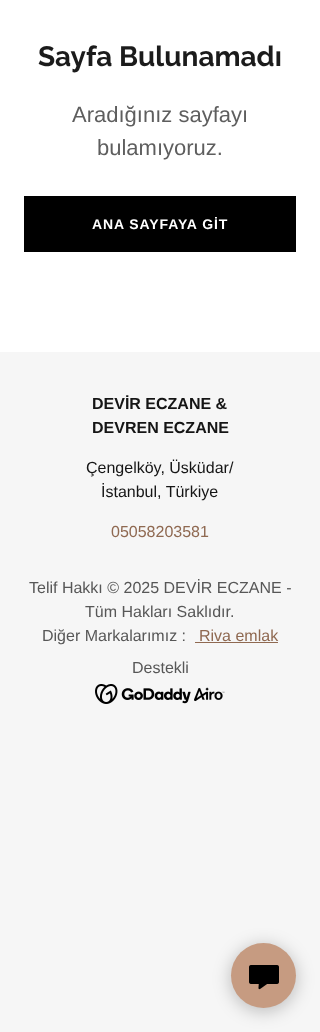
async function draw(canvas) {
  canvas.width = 320;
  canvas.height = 1032;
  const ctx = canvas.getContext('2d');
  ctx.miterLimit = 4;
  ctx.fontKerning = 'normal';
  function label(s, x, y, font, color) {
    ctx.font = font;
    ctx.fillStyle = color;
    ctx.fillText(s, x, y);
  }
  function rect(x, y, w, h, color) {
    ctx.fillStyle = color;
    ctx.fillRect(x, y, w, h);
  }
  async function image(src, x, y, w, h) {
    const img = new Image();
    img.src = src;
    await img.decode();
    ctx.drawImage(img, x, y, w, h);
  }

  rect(0, 0, 320, 1032, '#f6f6f6');
  rect(0, 0, 320, 352, '#fff');
  label('Sayfa Bulunamadı', 38, 66, 'bold 28px Raleway', '#1b1b1b');
  label('Aradığınız sayfayı', 72, 122, '22px Liberation Sans', '#5e5e5e');
  label('bulamıyoruz.', 97, 155, '22px Liberation Sans', '#5e5e5e');
  rect(24, 196, 272, 56, '#000');
  ctx.letterSpacing = '0.9px';
  label('ANA SAYFAYA GİT', 92, 229, 'bold 14px Liberation Sans', '#fff');
  ctx.letterSpacing = '0px';
  label('DEVİR ECZANE &', 92, 409, 'bold 16px Liberation Sans', '#151515');
  label('DEVREN ECZANE', 92, 433, 'bold 16px Liberation Sans', '#151515');
  label('Çengelköy, Üsküdar/', 86, 473, '16px Liberation Sans', '#151515');
  label('İstanbul, Türkiye', 101, 497, '16px Liberation Sans', '#151515');
  label('05058203581', 111, 537, '16px Liberation Sans', '#8f6951');
  label('Telif Hakkı © 2025 DEVİR ECZANE -', 29, 593, '16px Liberation Sans', '#575757');
  label('Tüm Hakları Saklıdır.', 85, 617, '16px Liberation Sans', '#575757');
  label('Diğer Markalarımız :', 42, 641, '16px Liberation Sans', '#575757');
  label('Riva emlak', 199, 641, '16px Liberation Sans', '#8f6951');
  rect(195, 642, 83, 1, '#8f6951');
  label('Destekli', 132, 673, '16px Liberation Sans', '#575757');
  await image('assets/img1.png', 95, 684, 130, 20);
  ctx.fillStyle = '#00000040';
  ctx.filter = 'blur(9px)';
  ctx.beginPath();
  ctx.roundRect(231, 946, 65, 65, 32.5);
  ctx.fill();
  ctx.filter = 'none';
  ctx.fillStyle = '#c69b81';
  ctx.beginPath();
  ctx.arc(263.5, 975.5, 32.5, 0, 2 * Math.PI);
  ctx.fill();
  await image('assets/img2.png', 249, 965, 30, 25);
}

draw(document.querySelector('canvas'));
